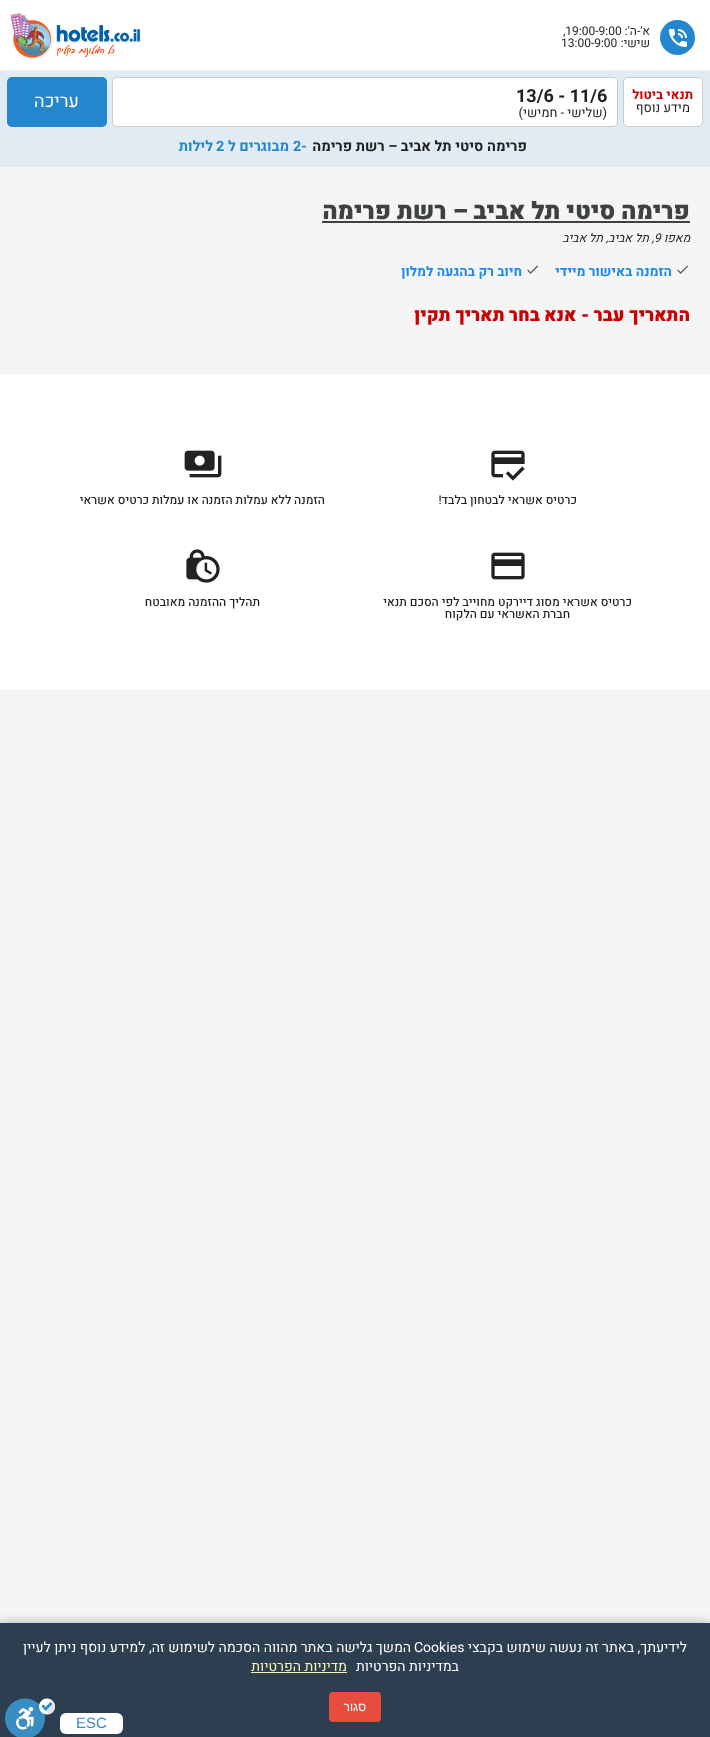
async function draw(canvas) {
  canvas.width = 710;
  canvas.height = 1737;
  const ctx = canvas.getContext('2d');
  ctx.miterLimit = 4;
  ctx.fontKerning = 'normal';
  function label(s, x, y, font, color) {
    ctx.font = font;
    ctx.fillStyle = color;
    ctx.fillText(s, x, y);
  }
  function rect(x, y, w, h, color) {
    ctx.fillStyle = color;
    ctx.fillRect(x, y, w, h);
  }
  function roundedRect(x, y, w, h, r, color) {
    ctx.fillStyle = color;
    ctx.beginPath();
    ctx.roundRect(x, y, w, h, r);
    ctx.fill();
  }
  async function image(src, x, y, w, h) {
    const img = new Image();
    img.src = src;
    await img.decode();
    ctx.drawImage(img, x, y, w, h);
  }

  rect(0, 0, 710, 1737, '#f5f5f5');
  rect(0, 0, 710, 70, '#fff');
  rect(0, 70, 710, 1, '#efefef');
  ctx.fillStyle = '#2487ce';
  ctx.beginPath();
  ctx.arc(677.5, 37.5, 17.5, 0, 2 * Math.PI);
  ctx.fill();
  await image('assets/img1.png', 669, 29, 18, 18);
  ctx.direction = 'rtl';
  label('א\'-ה\':', 650, 35, '12px Heebo', '#222');
  ctx.direction = 'ltr';
  label(',19:00-9:00', 563, 35, '12px Heebo', '#222');
  ctx.direction = 'rtl';
  label('שישי:', 650, 47, '12px Heebo', '#222');
  ctx.direction = 'ltr';
  label('13:00-9:00', 561, 47, '12px Heebo', '#222');
  await image('assets/img2.png', 10, 13, 131, 47);
  rect(0, 71, 710, 96, '#e0ebf3');
  ctx.fillStyle = '#fff';
  ctx.beginPath();
  ctx.roundRect(623.5, 77.5, 79, 49, 4.5);
  ctx.fill();
  ctx.strokeStyle = '#ccc';
  ctx.stroke();
  ctx.direction = 'rtl';
  label('תנאי ביטול', 693, 99, 'bold 13px Heebo', '#c00');
  label('מידע נוסף', 690, 112, '13px Heebo', '#222');
  ctx.fillStyle = '#fff';
  ctx.beginPath();
  ctx.roundRect(112.5, 77.5, 505, 49, 4.5);
  ctx.fill();
  ctx.stroke();
  ctx.direction = 'ltr';
  label('13/6 - 11/6', 516, 102, 'bold 18px Heebo', '#222');
  ctx.direction = 'rtl';
  label('(שלישי - חמישי)', 607, 117, '13px Heebo', '#222');
  roundedRect(7, 77, 100, 50, 5, '#2487ce');
  label('עריכה', 79, 107, '18px Heebo', '#fff');
  label('פרימה סיטי תל אביב – רשת פרימה', 527, 151, 'bold 14.4px Heebo', '#222');
  ctx.direction = 'ltr';
  label('2-', 293, 151, 'bold 14.4px Heebo', '#2487ce');
  ctx.direction = 'rtl';
  label('מבוגרים ל', 289, 151, 'bold 14.4px Heebo', '#2487ce');
  ctx.direction = 'ltr';
  label('2', 216, 151, 'bold 14.4px Heebo', '#2487ce');
  ctx.direction = 'rtl';
  label('לילות', 213, 151, 'bold 14.4px Heebo', '#2487ce');
  label('פרימה סיטי תל אביב – רשת פרימה', 690, 219, '900 24px Heebo', '#3e4142');
  rect(322, 221, 368, 2, '#3e4142');
  label('מאפו', 690, 242, 'italic 12px Heebo', '#222');
  ctx.direction = 'ltr';
  label('9', 654, 242, 'italic 12px Heebo', '#222');
  ctx.direction = 'rtl';
  label(', תל אביב, תל אביב', 654, 242, 'italic 12px Heebo', '#222');
  await image('assets/img3.png', 677, 265, 11, 9);
  label('הזמנה באישור מיידי', 672, 276, 'bold 13.5px Heebo', '#1a88f6');
  await image('assets/img3.png', 527, 265, 11, 9);
  label('חיוב רק בהגעה למלון', 522, 276, 'bold 13.5px Heebo', '#1a88f6');
  label('התאריך עבר - אנא בחר תאריך תקין', 690, 321, '900 18px Heebo', '#c00');
  rect(0, 374, 710, 316, '#fff');
  await image('assets/img4.png', 491, 450, 34, 31);
  label('כרטיס אשראי לבטחון בלבד!', 577, 504, '500 12px Heebo', '#222');
  await image('assets/img5.png', 184, 450, 38, 28);
  label('הזמנה ללא עמלות הזמנה או עמלות כרטיס אשראי', 325, 504, '500 12px Heebo', '#222');
  await image('assets/img6.png', 491, 552, 34, 28);
  label('כרטיס אשראי מסוג דיירקט מחוייב לפי הסכם תנאי', 632, 606, '500 12px Heebo', '#222');
  label('חברת האשראי עם הלקוח', 570, 618, '500 12px Heebo', '#222');
  await image('assets/img7.png', 186, 549, 34, 34);
  label('תהליך ההזמנה מאובטח', 260, 606, '500 12px Heebo', '#222');
  ctx.fillStyle = '#00000033';
  ctx.filter = 'blur(5px)';
  ctx.beginPath();
  ctx.rect(0, 1621, 710, 114);
  ctx.fill();
  ctx.filter = 'none';
  rect(0, 1623, 710, 114, '#2c3e50');
  label('לידיעתך, באתר זה נעשה שימוש בקבצי', 687, 1652, '14px Heebo', '#fff');
  ctx.direction = 'ltr';
  label('Cookies', 414, 1652, '14px Heebo', '#fff');
  ctx.direction = 'rtl';
  label('המשך גלישה באתר מהווה הסכמה לשימוש זה, למידע נוסף ניתן לעיין', 411, 1652, '14px Heebo', '#fff');
  label('במדיניות הפרטיות', 459, 1671, '14px Heebo', '#fff');
  label('מדיניות הפרטיות', 347, 1671, '14px Heebo', '#f9f3ae');
  rect(251, 1672, 96, 1, '#f9f3ae');
  roundedRect(329, 1692, 52, 30, 4, '#e74c3c');
  label('סגור', 366, 1711, '12px Liberation Sans', '#fff');
  roundedRect(60, 1713, 63, 21, 6, '#fff');
  ctx.direction = 'ltr';
  label('ESC', 76, 1728, '15px Liberation Sans', '#3a8dc2');
  await image('assets/img8.png', 5, 1698, 51, 39);
}

draw(document.querySelector('canvas'));
